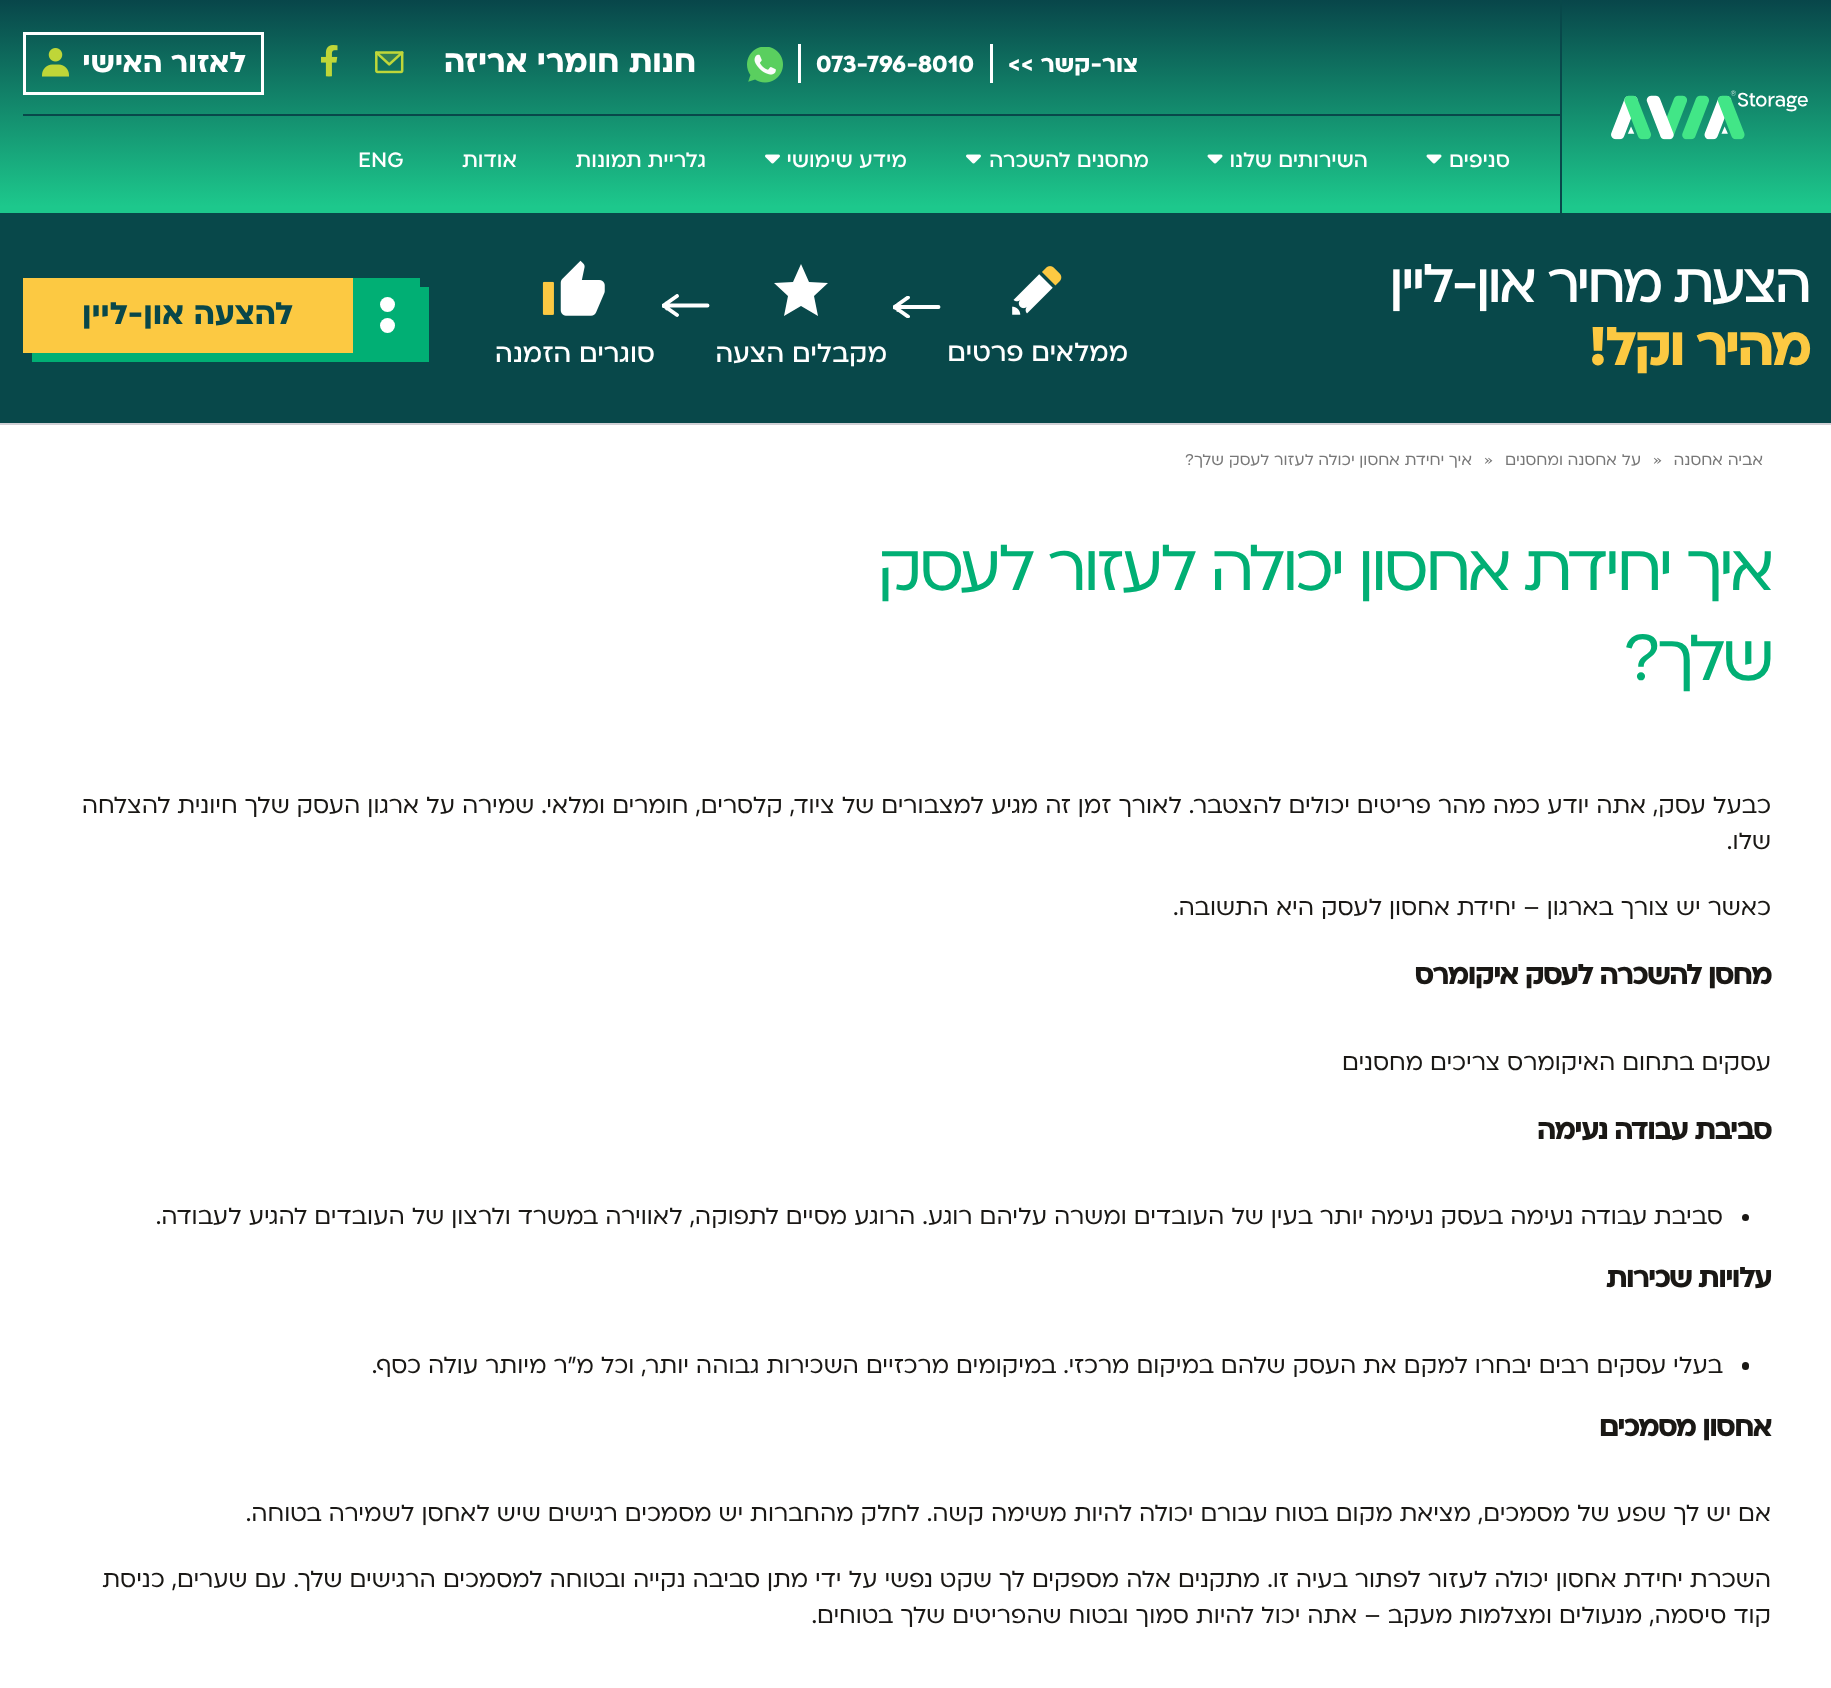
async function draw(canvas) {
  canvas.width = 1831;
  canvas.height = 1688;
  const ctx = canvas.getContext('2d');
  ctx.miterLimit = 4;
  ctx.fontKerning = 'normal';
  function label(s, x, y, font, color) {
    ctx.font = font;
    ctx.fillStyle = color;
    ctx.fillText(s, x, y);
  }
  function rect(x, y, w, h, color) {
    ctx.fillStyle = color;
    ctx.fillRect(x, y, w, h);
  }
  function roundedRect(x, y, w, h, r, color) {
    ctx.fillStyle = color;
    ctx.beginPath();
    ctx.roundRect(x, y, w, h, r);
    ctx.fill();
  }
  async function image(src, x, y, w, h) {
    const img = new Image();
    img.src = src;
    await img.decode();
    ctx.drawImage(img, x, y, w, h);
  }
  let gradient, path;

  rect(0, 0, 1831, 1688, '#fff');
  gradient = ctx.createLinearGradient(916, 0, 916, 213);
  gradient.addColorStop(0, '#08464a');
  gradient.addColorStop(0.97, '#1dc88c');
  ctx.fillStyle = gradient;
  ctx.fillRect(0, 0, 1831, 213);
  await image('assets/img1.png', 1611, 90, 197, 50);
  rect(1560, 0, 2, 213, '#08484a');
  rect(990, 44, 3, 39, '#fff');
  ctx.direction = 'rtl';
  label('צור-קשר >>', 1138, 72, 'bold 27px "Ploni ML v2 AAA"', '#fff');
  rect(798, 44, 3, 39, '#fff');
  ctx.direction = 'ltr';
  label('073-796-8010', 816, 72, 'bold 27px "Ploni ML v2 AAA"', '#fff');
  await image('assets/img2.png', 747, 47, 36, 36);
  ctx.direction = 'rtl';
  label('חנות חומרי אריזה', 696, 72, 'bold 36px "Ploni ML v2 AAA"', '#fff');
  await image('assets/img3.png', 375, 51, 29, 23);
  await image('assets/img4.png', 321, 45, 17, 32);
  await image('assets/img5.png', 42, 48, 27, 29);
  ctx.strokeStyle = '#fff';
  ctx.lineWidth = 3;
  ctx.strokeRect(24.5, 33.5, 238, 60);
  label('לאזור האישי', 246, 72, 'bold 33px "Ploni ML v2 AAA"', '#fff');
  rect(23, 114, 1537, 2, '#08484a');
  label('סניפים', 1510, 167, '500 24px "Ploni ML v2 AAA"', '#fff');
  await image('assets/img6.png', 1426, 154, 16, 10);
  label('השירותים שלנו', 1368, 167, '500 24px "Ploni ML v2 AAA"', '#fff');
  await image('assets/img6.png', 1207, 154, 16, 10);
  label('מחסנים להשכרה', 1149, 167, '500 24px "Ploni ML v2 AAA"', '#fff');
  await image('assets/img7.png', 966, 154, 15, 10);
  label('מידע שימושי', 907, 167, '500 24px "Ploni ML v2 AAA"', '#fff');
  await image('assets/img7.png', 765, 154, 15, 10);
  label('גלריית תמונות', 706, 167, '500 24px "Ploni ML v2 AAA"', '#fff');
  label('אודות', 517, 167, '500 24px "Ploni ML v2 AAA"', '#fff');
  ctx.direction = 'ltr';
  label('ENG', 358, 167, '500 24px "Ploni ML v2 AAA"', '#fff');
  rect(0, 213, 1831, 210, '#08484a');
  ctx.letterSpacing = '-3.1px';
  ctx.direction = 'rtl';
  label('הצעת מחיר און-ליין', 1809, 302, '500 63px "Ploni ML v2 AAA"', '#fff');
  label('מהיר וקל!', 1809, 365, 'bold 63px "Ploni ML v2 AAA"', '#fcc942');
  ctx.fillStyle = '#01af74';
  path = new Path2D('M32 352V362H429V287H420V352Z');
  ctx.fill(path);
  rect(353, 278, 67, 74, '#01af74');
  ctx.fillStyle = '#fff';
  ctx.beginPath();
  ctx.arc(387.5, 304.5, 7.5, 0, 2 * Math.PI);
  ctx.fill();
  ctx.beginPath();
  ctx.arc(387.5, 325.5, 7.5, 0, 2 * Math.PI);
  ctx.fill();
  rect(23, 278, 330, 75, '#fcc942');
  ctx.letterSpacing = '0px';
  label('להצעה און-ליין', 293, 324, 'bold 36px "Ploni ML v2 AAA"', '#08474a');
  ctx.save();
  ctx.beginPath();
  ctx.rect(893, 296, 48, 22);
  ctx.clip();
  path = new Path2D('M894.5 307L908 316.5M894.5 307H925M938.5 307H925M894.5 307.5C896 306.5 898 309 898 310M894.5 307L908 297.5M894.5 307H925M938.5 307H925M894.5 307C896 308 898 305 898 304.5');
  ctx.lineWidth = 3.9;
  ctx.lineCap = 'round';
  ctx.lineJoin = 'round';
  ctx.stroke(path);
  ctx.restore();
  await image('assets/img8.png', 1012, 266, 50, 49);
  label('ממלאים פרטים', 1128, 361, '500 30px "Ploni ML v2 AAA"', '#fff');
  ctx.save();
  ctx.beginPath();
  ctx.rect(662, 294, 48, 24);
  ctx.clip();
  path = new Path2D('M663.5 305.5L677 315M663.5 305.5H694M707.5 305.5H694M663.5 306C665 305 667 307.5 667 308.5M663.5 305.5L677 296M663.5 305.5H694M707.5 305.5H694M663.5 305.5C665 306.5 667 303.5 667 303');
  ctx.lineWidth = 3.9;
  ctx.lineCap = 'round';
  ctx.lineJoin = 'round';
  ctx.stroke(path);
  ctx.restore();
  path = new Path2D('M784 316L788 296L774 283L793 282L801 264L809 282L828 283L814 296L818 316L801 306Z');
  ctx.fill(path);
  label('מקבלים הצעה', 887, 362, '500 30px "Ploni ML v2 AAA"', '#fff');
  await image('assets/img9.png', 542, 260, 63, 56);
  label('סוגרים הזמנה', 655, 362, '500 30px "Ploni ML v2 AAA"', '#fff');
  rect(0, 423, 1831, 2, '#d1d0d5');
  label('אביה אחסנה', 1763, 465, '18px "Ploni ML v2 AAA"', '#777');
  ctx.direction = 'ltr';
  label('»', 1653, 465, '18px "Ploni ML v2 AAA"', '#777');
  ctx.direction = 'rtl';
  label('על אחסנה ומחסנים', 1641, 465, '18px "Ploni ML v2 AAA"', '#777');
  ctx.direction = 'ltr';
  label('»', 1484, 465, '18px "Ploni ML v2 AAA"', '#777');
  ctx.direction = 'rtl';
  label('איך יחידת אחסון יכולה לעזור לעסק שלך?', 1472, 465, '18px "Ploni ML v2 AAA"', '#777');
  ctx.letterSpacing = '-3.75px';
  label('איך יחידת אחסון יכולה לעזור לעסק', 1771, 590, '75px "Ploni ML v2 AAA"', '#01af74');
  label('שלך?', 1771, 680, '75px "Ploni ML v2 AAA"', '#01af74');
  ctx.letterSpacing = '0px';
  label('כבעל עסק, אתה יודע כמה מהר פריטים יכולים להצטבר. לאורך זמן זה מגיע למצבורים של ציוד, קלסרים, חומרים ומלאי. שמירה על ארגון העסק שלך חיונית להצלחה', 1771, 813, '27px "Ploni ML v2 AAA"', '#1a1815');
  label('שלו.', 1771, 849, '27px "Ploni ML v2 AAA"', '#1a1815');
  label('כאשר יש צורך בארגון – יחידת אחסון לעסק היא התשובה.', 1771, 915, '27px "Ploni ML v2 AAA"', '#1a1815');
  ctx.letterSpacing = '-1.65px';
  label('מחסן להשכרה לעסק איקומרס', 1771, 984, 'bold 33px "Ploni ML v2 AAA"', '#1a1815');
  ctx.letterSpacing = '0px';
  label('עסקים בתחום האיקומרס צריכים מחסנים', 1771, 1070, '27px "Ploni ML v2 AAA"', '#1a1815');
  ctx.letterSpacing = '-1.65px';
  label('סביבת עבודה נעימה', 1771, 1139, 'bold 33px "Ploni ML v2 AAA"', '#1a1815');
  ctx.beginPath();
  ctx.arc(1745.5, 1217.5, 3.5, 0, 2 * Math.PI);
  ctx.fill();
  ctx.letterSpacing = '0px';
  label('סביבת עבודה נעימה בעסק נעימה יותר בעין של העובדים ומשרה עליהם רוגע. הרוגע מסיים לתפוקה, לאווירה במשרד ולרצון של העובדים להגיע לעבודה.', 1723, 1224, '27px "Ploni ML v2 AAA"', '#1a1815');
  ctx.letterSpacing = '-1.65px';
  label('עלויות שכירות', 1771, 1287, 'bold 33px "Ploni ML v2 AAA"', '#1a1815');
  roundedRect(1742, 1362, 7, 8, 3.5, '#1a1815');
  ctx.letterSpacing = '0px';
  label('בעלי עסקים רבים יבחרו למקם את העסק שלהם במיקום מרכזי. במיקומים מרכזיים השכירות גבוהה יותר, וכל מ"ר מיותר עולה כסף.', 1723, 1373, '27px "Ploni ML v2 AAA"', '#1a1815');
  ctx.letterSpacing = '-1.65px';
  label('אחסון מסמכים', 1771, 1436, 'bold 33px "Ploni ML v2 AAA"', '#1a1815');
  ctx.letterSpacing = '0px';
  label('אם יש לך שפע של מסמכים, מציאת מקום בטוח עבורם יכולה להיות משימה קשה. לחלק מהחברות יש מסמכים רגישים שיש לאחסן לשמירה בטוחה.', 1771, 1521, '27px "Ploni ML v2 AAA"', '#1a1815');
  label('השכרת יחידת אחסון יכולה לעזור לפתור בעיה זו. מתקנים אלה מספקים לך שקט נפשי על ידי מתן סביבה נקייה ובטוחה למסמכים הרגישים שלך. עם שערים, כניסת', 1771, 1587, '27px "Ploni ML v2 AAA"', '#1a1815');
  label('קוד סיסמה, מנעולים ומצלמות מעקב – אתה יכול להיות סמוך ובטוח שהפריטים שלך בטוחים.', 1771, 1623, '27px "Ploni ML v2 AAA"', '#1a1815');
}

draw(document.querySelector('canvas'));
